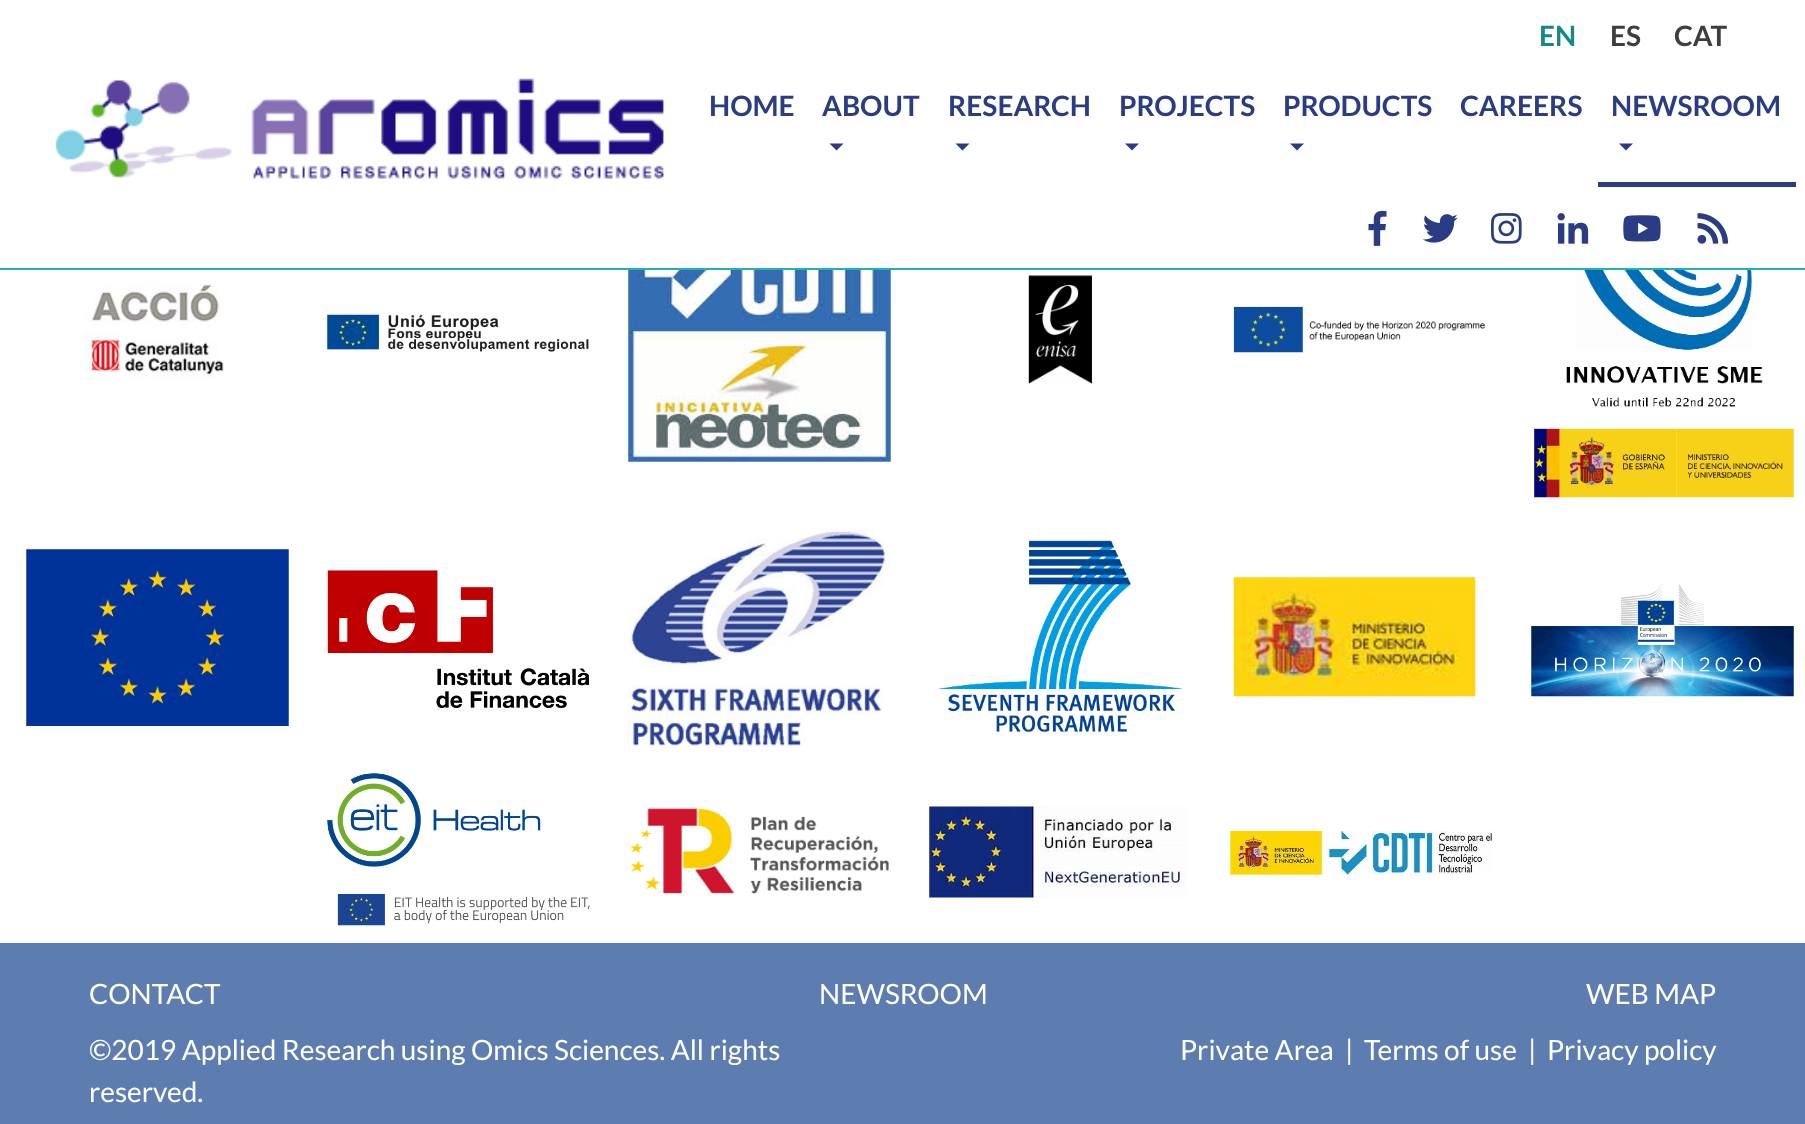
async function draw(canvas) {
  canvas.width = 1805;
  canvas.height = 1124;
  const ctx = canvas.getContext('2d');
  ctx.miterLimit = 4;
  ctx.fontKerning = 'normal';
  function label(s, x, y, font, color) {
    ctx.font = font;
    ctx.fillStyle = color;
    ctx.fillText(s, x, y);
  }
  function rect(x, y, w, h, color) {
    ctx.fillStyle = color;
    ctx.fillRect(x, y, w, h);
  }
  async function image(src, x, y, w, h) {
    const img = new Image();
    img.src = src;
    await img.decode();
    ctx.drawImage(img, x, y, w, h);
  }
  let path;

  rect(0, 0, 1805, 1124, '#fff');
  rect(0, 268, 1805, 2, '#21b1b5');
  label('EN', 1539, 46, 'bold 28px Lato', '#19878a');
  label('ES', 1610, 46, 'bold 28px Lato', '#3e3e3e');
  label('CAT', 1674, 46, 'bold 28px Lato', '#3e3e3e');
  await image('assets/img1.png', 55, 78, 609, 101);
  label('HOME', 709, 116, 'bold 28px Lato', '#293c84');
  label('ABOUT', 822, 116, 'bold 28px Lato', '#293c84');
  path = new Path2D('M829.5 143.5H843.5L836.5 150.5Z');
  ctx.fill(path);
  label('RESEARCH', 948, 116, 'bold 28px Lato', '#293c84');
  path = new Path2D('M955.5 143.5H969.5L962.5 150.5Z');
  ctx.fill(path);
  label('PROJECTS', 1119, 116, 'bold 28px Lato', '#293c84');
  path = new Path2D('M1125 143.5H1139L1132 150.5Z');
  ctx.fill(path);
  label('PRODUCTS', 1283, 116, 'bold 28px Lato', '#293c84');
  path = new Path2D('M1290 143.5H1304L1297 150.5Z');
  ctx.fill(path);
  label('CAREERS', 1460, 116, 'bold 28px Lato', '#293c84');
  rect(1598, 182, 198, 5, '#293c84');
  label('NEWSROOM', 1611, 116, 'bold 28px Lato', '#293c84');
  path = new Path2D('M1619 143.5H1633L1626 150.5Z');
  ctx.fill(path);
  await image('assets/img2.png', 1368, 210, 19, 36);
  await image('assets/img3.png', 1423, 214, 35, 29);
  await image('assets/img4.png', 1491, 213, 31, 31);
  await image('assets/img5.png', 1557, 213, 32, 31);
  await image('assets/img6.png', 1623, 215, 38, 27);
  await image('assets/img7.png', 1697, 213, 32, 31);
  await image('assets/img8.png', 83, 284, 141, 95);
  await image('assets/img9.png', 327, 314, 262, 38);
  await image('assets/img10.png', 628, 270, 263, 192);
  await image('assets/img11.png', 1028, 275, 64, 109);
  await image('assets/img12.png', 1233, 306, 253, 47);
  await image('assets/img13.png', 1534, 270, 260, 228);
  await image('assets/img14.png', 26, 549, 263, 177);
  await image('assets/img15.png', 327, 570, 262, 138);
  await image('assets/img16.png', 628, 528, 263, 218);
  await image('assets/img17.png', 938, 540, 245, 193);
  await image('assets/img18.png', 1233, 577, 243, 120);
  await image('assets/img19.png', 1531, 584, 263, 113);
  await image('assets/img20.png', 327, 773, 263, 153);
  await image('assets/img21.png', 630, 808, 259, 86);
  await image('assets/img22.png', 929, 806, 258, 92);
  await image('assets/img23.png', 1230, 831, 262, 44);
  rect(0, 943, 1805, 181, '#5d7db0');
  label('CONTACT', 89, 1004, '28px Lato', '#fff');
  label('NEWSROOM', 819, 1004, '28px Lato', '#fff');
  label('WEB MAP', 1586, 1004, '28px Lato', '#fff');
  label('©2019 Applied Research using Omics Sciences. All rights', 89, 1060, '28px Lato', '#fff');
  label('reserved.', 89, 1102, '28px Lato', '#fff');
  label('Private Area', 1180, 1060, '28px Lato', '#fff');
  label('|', 1345, 1060, '28px Lato', '#fff');
  label('Terms of use', 1364, 1060, '28px Lato', '#fff');
  label('|', 1528, 1060, '28px Lato', '#fff');
  label('Privacy policy', 1547, 1060, '28px Lato', '#fff');
}

draw(document.querySelector('canvas'));
